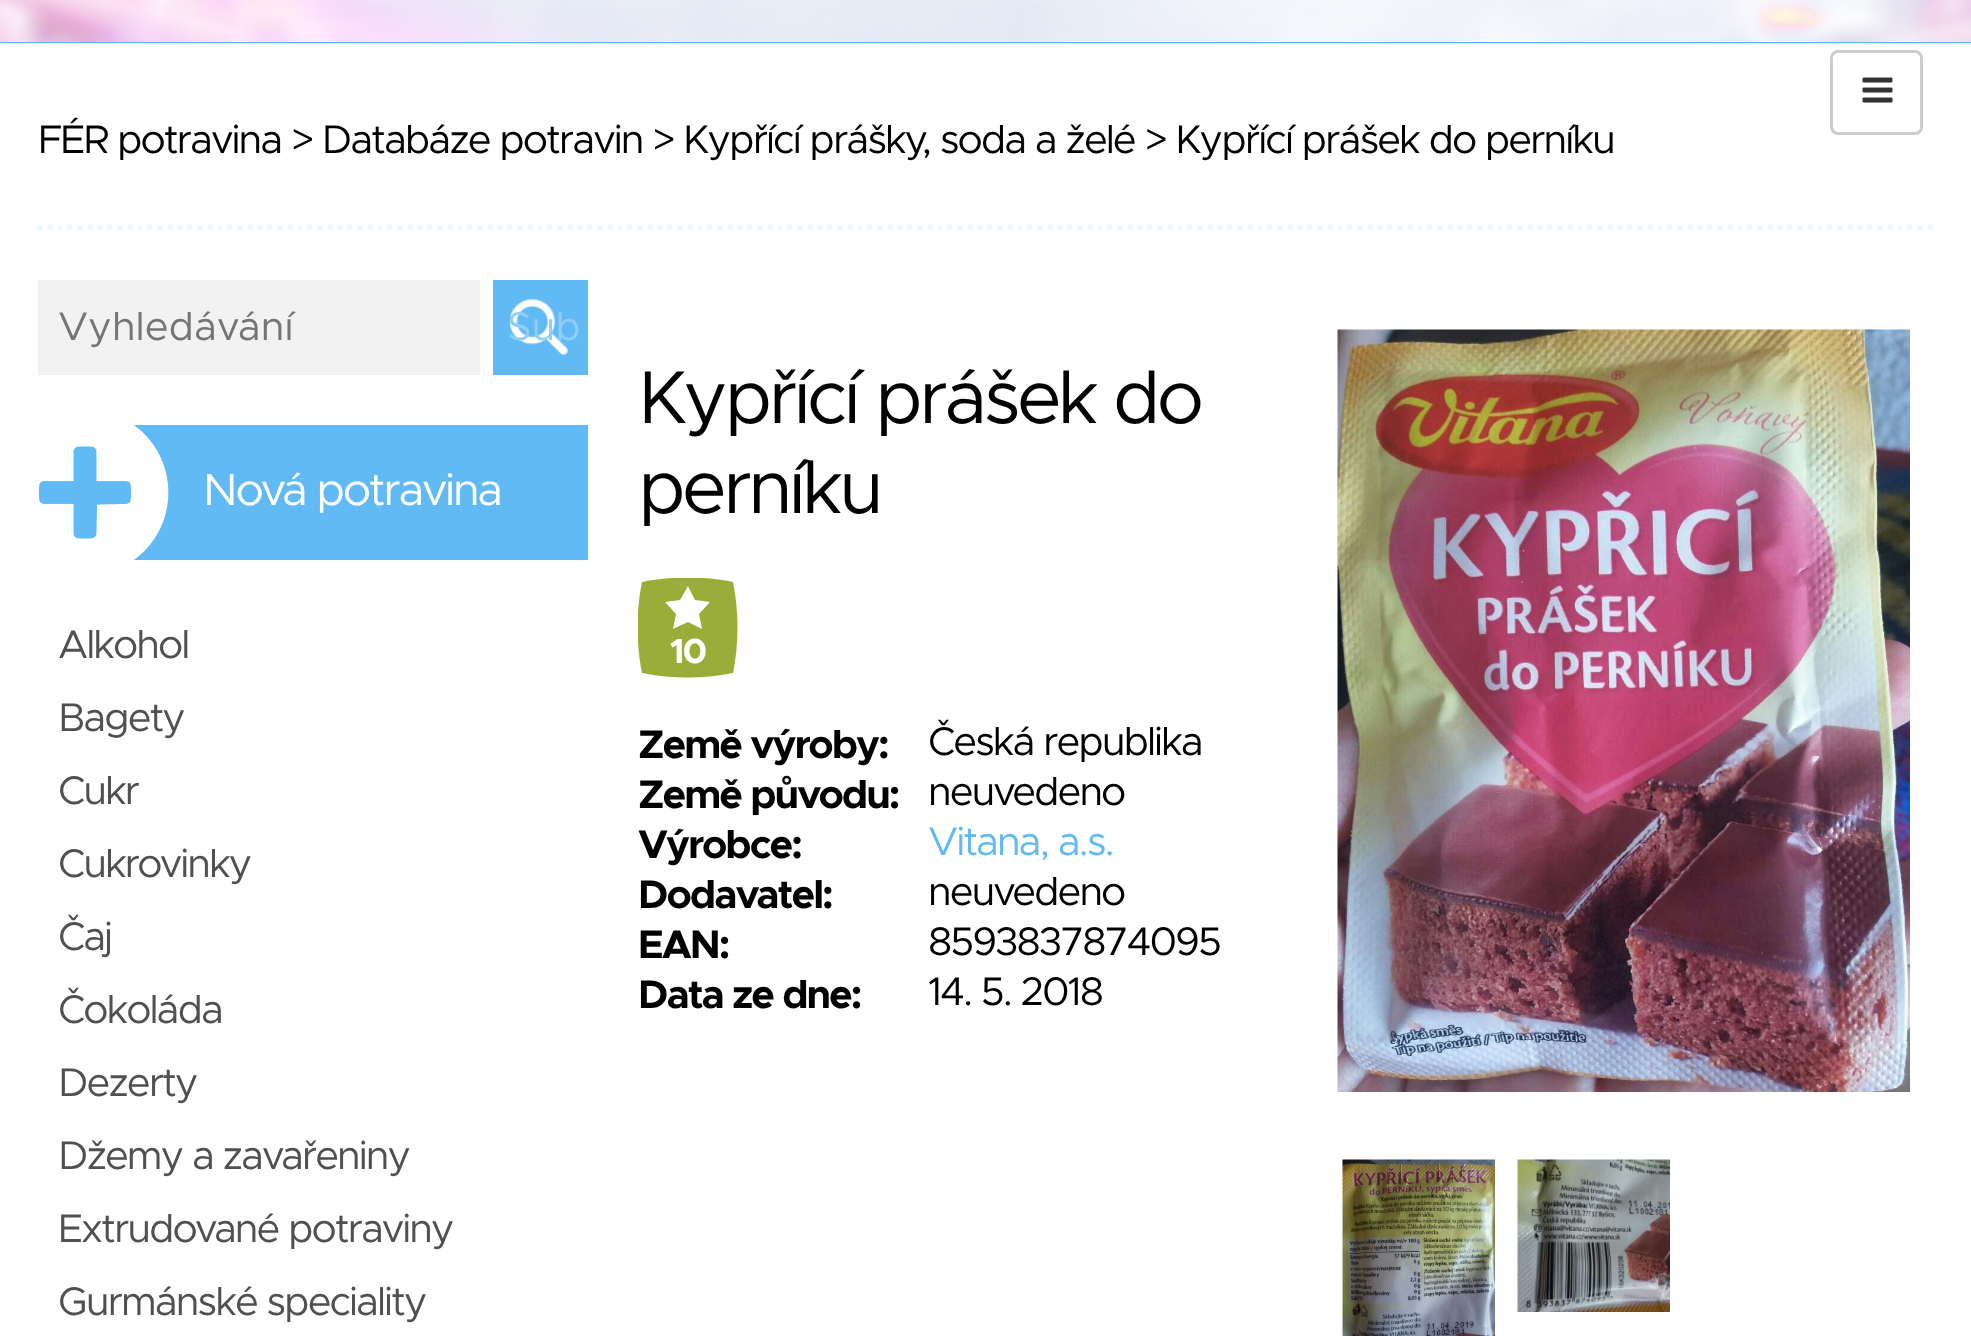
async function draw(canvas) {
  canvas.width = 1971;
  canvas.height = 1336;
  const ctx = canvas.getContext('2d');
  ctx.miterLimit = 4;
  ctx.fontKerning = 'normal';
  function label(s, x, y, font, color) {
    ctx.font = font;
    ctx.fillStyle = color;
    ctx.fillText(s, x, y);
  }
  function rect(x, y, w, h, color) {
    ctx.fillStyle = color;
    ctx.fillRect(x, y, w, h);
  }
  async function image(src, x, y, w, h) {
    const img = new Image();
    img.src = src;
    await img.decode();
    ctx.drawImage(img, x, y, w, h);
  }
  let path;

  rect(0, 0, 1971, 1336, '#fff');
  rect(0, 42, 1971, 1, '#61baf4');
  await image('assets/img1.png', 0, 0, 1971, 42);
  ctx.beginPath();
  ctx.roundRect(1831.5, 51.5, 90, 82, 6.5);
  ctx.strokeStyle = '#ccc';
  ctx.lineWidth = 3;
  ctx.stroke();
  await image('assets/img2.png', 1862, 77, 31, 26);
  ctx.letterSpacing = '-2px';
  label('FÉR potravina > Databáze potravin > Kypřící prášky, soda a želé > Kypřící prášek do perníku', 38, 153, '40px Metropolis', '#000');
  path = new Path2D('M37.5 227.5H1935');
  ctx.strokeStyle = '#ecf7fe';
  ctx.lineWidth = 5;
  ctx.setLineDash([5, 5]);
  ctx.stroke(path);
  rect(38, 280, 442, 95, '#f2f2f2');
  ctx.letterSpacing = '0px';
  label('Vyhledávání', 58, 340, '40px Metropolis', '#757575');
  rect(493, 280, 95, 95, '#62baf4');
  await image('assets/img3.png', 510, 299, 58, 56);
  label('Sub', 507, 340, '40px Metropolis', '#90cef7');
  rect(38, 425, 550, 135, '#62baf4');
  await image('assets/img4.png', 38, 425, 131, 135);
  ctx.letterSpacing = '-2.25px';
  label('Nová potravina', 203, 505, '45px Metropolis', '#fff');
  ctx.letterSpacing = '-2px';
  label('Alkohol', 58, 658, '40px Metropolis', '#505050');
  label('Bagety', 58, 731, '40px Metropolis', '#505050');
  label('Cukr', 58, 804, '40px Metropolis', '#505050');
  label('Cukrovinky', 58, 877, '40px Metropolis', '#505050');
  label('Čaj', 58, 950, '40px Metropolis', '#505050');
  label('Čokoláda', 58, 1023, '40px Metropolis', '#505050');
  label('Dezerty', 58, 1096, '40px Metropolis', '#505050');
  label('Džemy a zavařeniny', 58, 1169, '40px Metropolis', '#505050');
  label('Extrudované potraviny', 58, 1242, '40px Metropolis', '#505050');
  label('Gurmánské speciality', 58, 1315, '40px Metropolis', '#505050');
  ctx.letterSpacing = '-3.75px';
  label('Kypřící prášek do', 638, 423, '75px Metropolis', '#000');
  label('perníku', 638, 513, '75px Metropolis', '#000');
  ctx.save();
  ctx.beginPath();
  ctx.rect(638, 578, 100, 100);
  ctx.clip();
  ctx.fillStyle = '#9aad38';
  path = new Path2D('M642 582C672 576 703 576 733 582C739 612 739 643 733 673C703 679 672 679 642 673C636 643 636 612 642 582Z');
  ctx.fill(path, 'evenodd');
  ctx.restore();
  ctx.fillStyle = '#fff';
  path = new Path2D('M688 622L673 629L676 614L665 602L680 600L688 586L695 600L710 602L699 614L702 629Z');
  ctx.fill(path, 'evenodd');
  ctx.letterSpacing = '-2px';
  label('10', 670, 663, 'bold 35px Metropolis', '#fff');
  label('Země výroby:', 638, 758, 'bold 40px Metropolis', '#000');
  label('Česká republika', 928, 755, '40px Metropolis', '#000');
  label('Země původu:', 638, 808, 'bold 40px Metropolis', '#000');
  label('neuvedeno', 928, 805, '40px Metropolis', '#000');
  label('Výrobce:', 638, 858, 'bold 40px Metropolis', '#000');
  label('Vitana, a.s.', 928, 855, '40px Metropolis', '#62baf4');
  label('Dodavatel:', 638, 908, 'bold 40px Metropolis', '#000');
  label('neuvedeno', 928, 905, '40px Metropolis', '#000');
  label('EAN:', 638, 958, 'bold 40px Metropolis', '#000');
  label('8593837874095', 928, 955, '40px Metropolis', '#000');
  label('Data ze dne:', 638, 1008, 'bold 40px Metropolis', '#000');
  label('14. 5. 2018', 928, 1005, '40px Metropolis', '#000');
  await image('assets/img5.png', 1337, 329, 573, 763);
  await image('assets/img6.png', 1342, 1159, 153, 177);
  await image('assets/img7.png', 1517, 1159, 153, 153);
}

draw(document.querySelector('canvas'));
